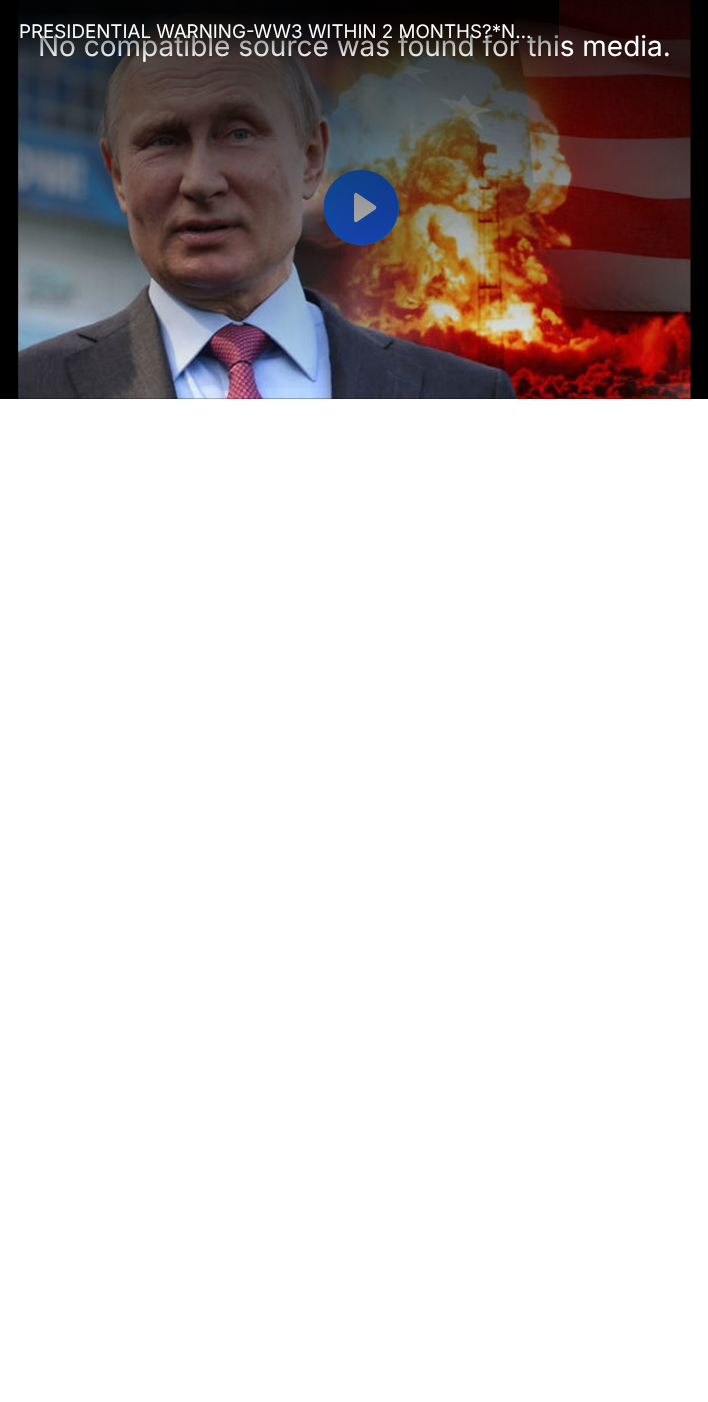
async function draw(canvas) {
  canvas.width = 708;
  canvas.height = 1402;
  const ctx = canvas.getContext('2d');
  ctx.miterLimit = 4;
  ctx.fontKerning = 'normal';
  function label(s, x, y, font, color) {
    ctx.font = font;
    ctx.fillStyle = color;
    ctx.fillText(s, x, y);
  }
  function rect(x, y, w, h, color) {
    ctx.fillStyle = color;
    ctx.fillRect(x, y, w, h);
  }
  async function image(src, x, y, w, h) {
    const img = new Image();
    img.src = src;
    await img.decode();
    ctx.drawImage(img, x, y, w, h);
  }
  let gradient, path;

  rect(0, 0, 708, 1402, '#fff');
  rect(0, 0, 708, 399, '#000');
  await image('assets/img1.png', 17, 0, 675, 399);
  ctx.fillStyle = '#01aef0';
  ctx.beginPath();
  ctx.arc(361.5, 207.5, 37.5, 0, 2 * Math.PI);
  ctx.fill();
  ctx.save();
  ctx.beginPath();
  ctx.rect(324, 170, 75, 75);
  ctx.clip();
  gradient = ctx.createLinearGradient(329, 169, 374, 223);
  gradient.addColorStop(0, '#1a7efa');
  gradient.addColorStop(1, '#1c61f9');
  ctx.fillStyle = gradient;
  ctx.beginPath();
  ctx.arc(361, 207.5, 37.5, 0, 2 * Math.PI);
  ctx.fill();
  ctx.restore();
  ctx.fillStyle = '#fff';
  path = new Path2D('M357.5 221.5C355.5 223 354 222 354 219.5V195.5C354 193 355.5 192 357.5 193.5L374.5 205C377 206.5 377 208.5 374.5 210Z');
  ctx.fill(path);
  gradient = ctx.createLinearGradient(354, 0, 354, 399);
  gradient.addColorStop(0, '#000000cc');
  gradient.addColorStop(1, '#00000000');
  ctx.fillStyle = gradient;
  ctx.fillRect(17, 0, 675, 388);
  label('No compatible source was found for this media.', 38, 56, '28px Inter', '#fff');
  gradient = ctx.createLinearGradient(279, 0, 279, 60);
  gradient.addColorStop(0.2, '#000000e6');
  gradient.addColorStop(1, '#00000000');
  ctx.fillStyle = gradient;
  ctx.fillRect(18, 0, 541, 59);
  label('PRESIDENTIAL WARNING-WW3 WITHIN 2 MONTHS?*N…', 19, 38, '18.75px Inter', '#fff');
}

draw(document.querySelector('canvas'));
